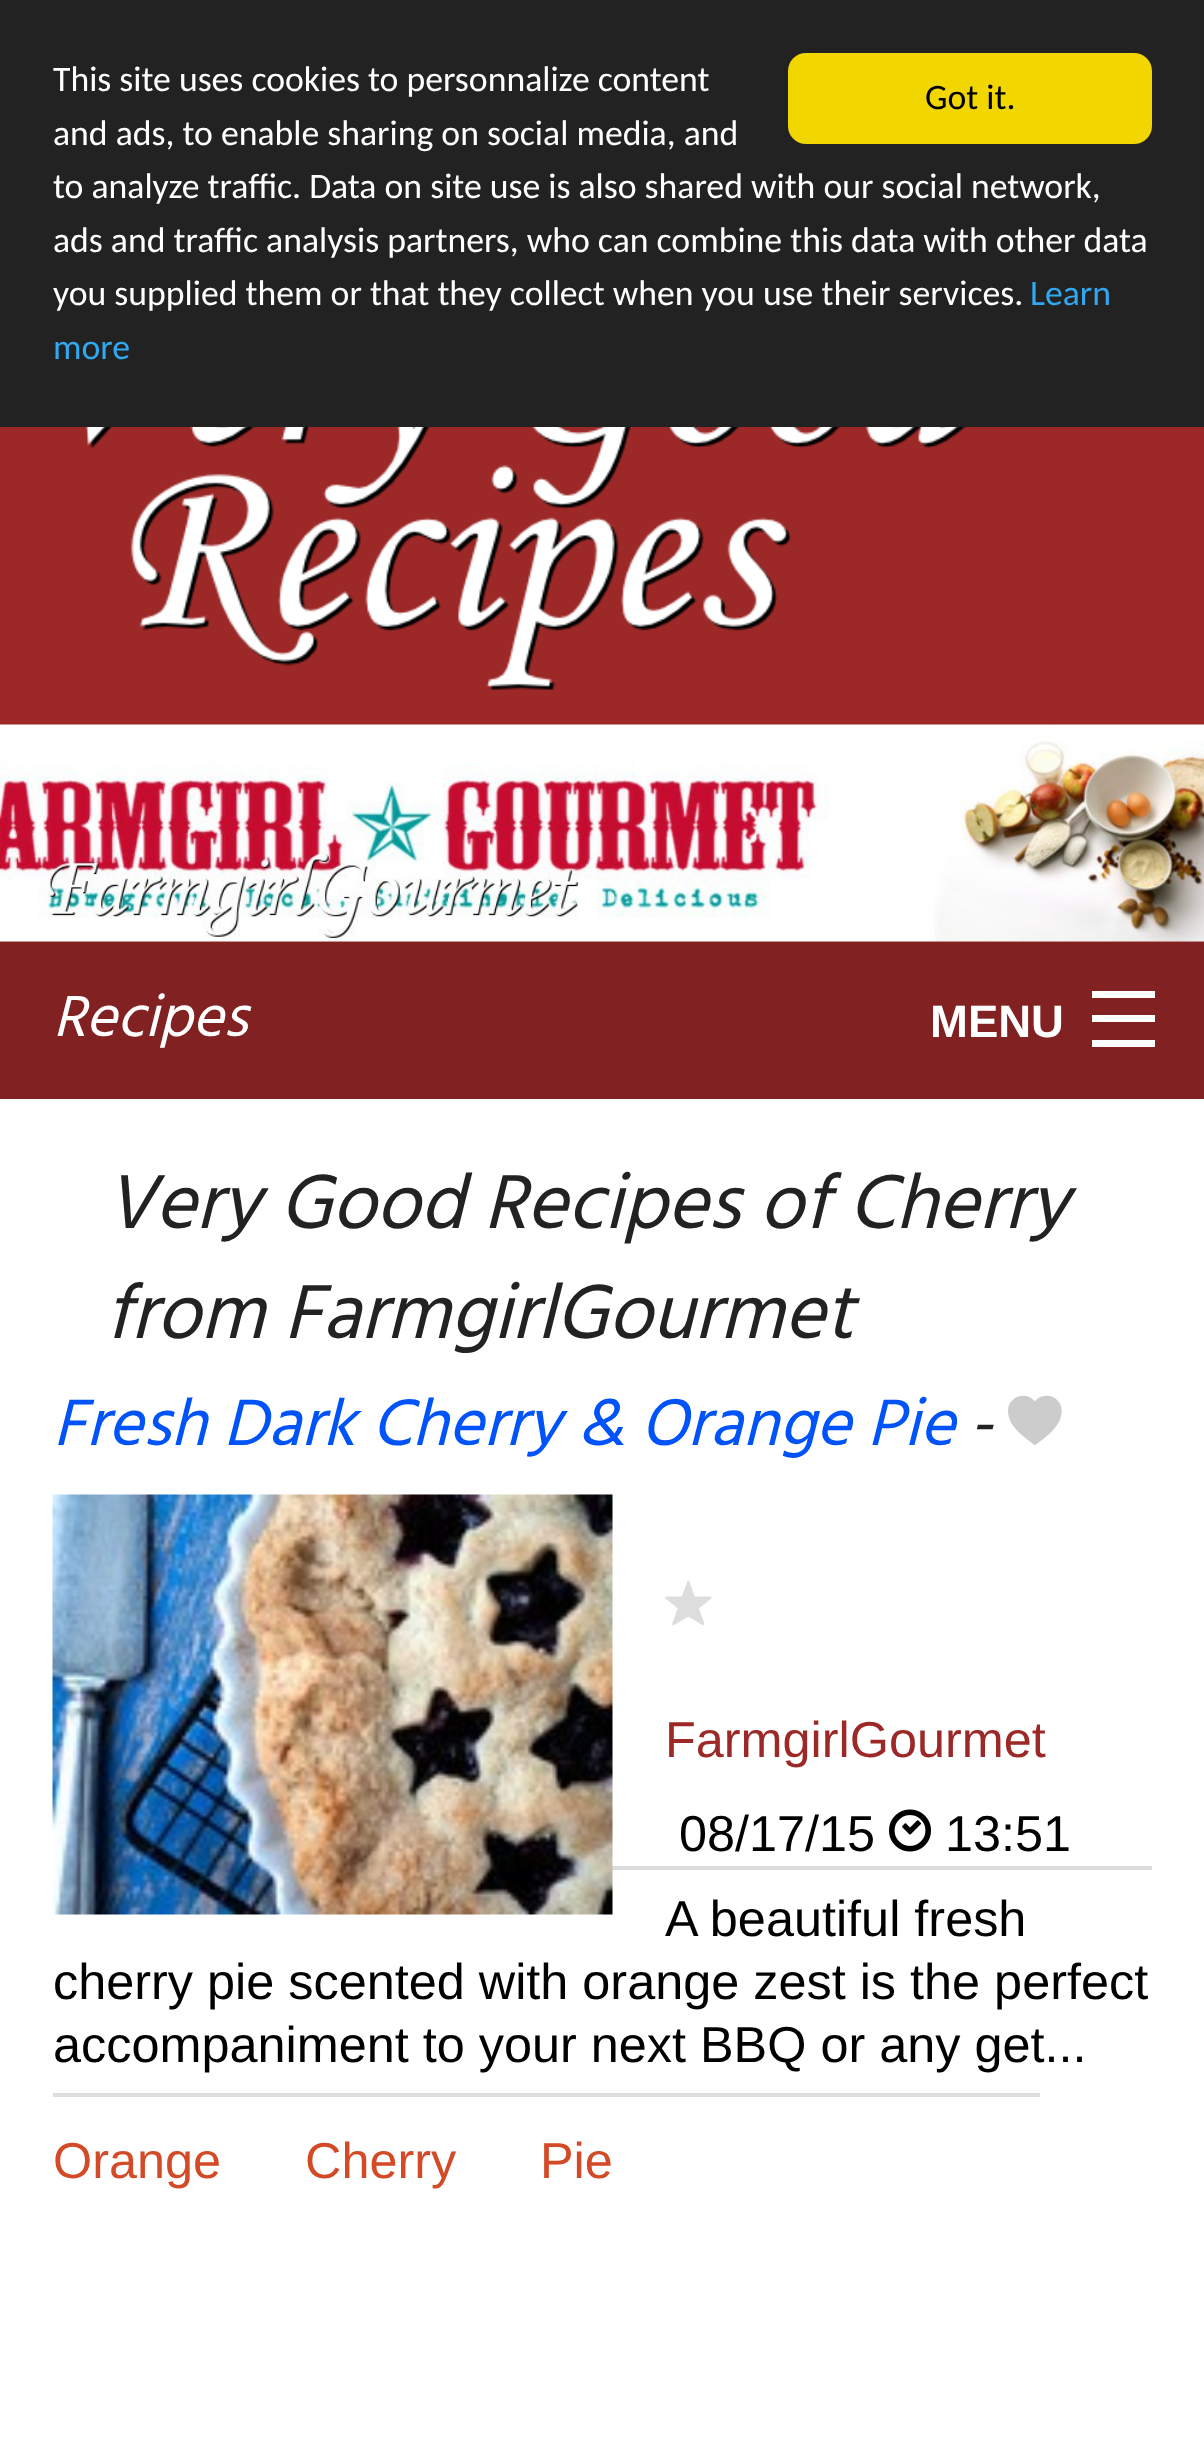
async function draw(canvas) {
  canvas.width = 1204;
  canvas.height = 2439;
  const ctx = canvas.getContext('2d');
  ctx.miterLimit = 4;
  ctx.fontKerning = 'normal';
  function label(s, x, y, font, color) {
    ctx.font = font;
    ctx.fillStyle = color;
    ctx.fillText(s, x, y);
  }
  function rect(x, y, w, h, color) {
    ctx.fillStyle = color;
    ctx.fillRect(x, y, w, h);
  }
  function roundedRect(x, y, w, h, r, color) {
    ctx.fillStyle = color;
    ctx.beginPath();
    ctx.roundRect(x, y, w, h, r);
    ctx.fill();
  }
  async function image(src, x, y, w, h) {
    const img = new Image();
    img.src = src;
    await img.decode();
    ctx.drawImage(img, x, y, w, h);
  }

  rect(0, 0, 1204, 2439, '#fff');
  rect(0, 0, 1204, 427, '#222');
  label('This site uses cookies to personnalize content', 53, 91, '35.7px Carlito', '#fff');
  label('and ads, to enable sharing on social media, and', 53, 145, '35.7px Carlito', '#fff');
  label('to analyze traffic. Data on site use is also shared with our social network,', 53, 198, '35.7px Carlito', '#fff');
  label('ads and traffic analysis partners, who can combine this data with other data', 53, 252, '35.7px Carlito', '#fff');
  label('you supplied them or that they collect when you use their services.', 53, 305, '35.7px Carlito', '#fff');
  label('Learn', 1030, 305, '35.7px Carlito', '#31a8f0');
  label('more', 53, 359, '35.7px Carlito', '#31a8f0');
  roundedRect(788, 53, 364, 91, 18, '#f1d600');
  label('Got it.', 925, 109, '35.7px Carlito', '#000');
  rect(0, 427, 1204, 515, '#9c2828');
  await image('assets/img1.png', 85, 427, 882, 263);
  await image('assets/img2.png', 0, 724, 1204, 218);
  rect(0, 942, 1204, 157, '#822121');
  label('Recipes', 53, 1036, 'italic 59.5px Hind', '#fff');
  label('MENU', 930, 1037, 'bold 45.5px Liberation Sans', '#fff');
  rect(1092, 1040, 63, 7, '#fff');
  rect(1092, 1015, 63, 7, '#fff');
  rect(1092, 991, 63, 7, '#fff');
  label('Very Good Recipes of Cherry', 105, 1228, 'italic 78.4px Hind', '#222');
  label('from FarmgirlGourmet', 105, 1338, 'italic 78.4px Hind', '#222');
  label('Fresh Dark Cherry & Orange Pie', 53, 1445, 'italic 67.25px Hind', '#0053f9');
  label('-', 969, 1445, 'italic 67.25px Hind', '#222');
  await image('assets/img3.png', 1008, 1395, 54, 50);
  rect(612, 1866, 540, 4, '#ddd');
  await image('assets/img4.png', 52, 1494, 561, 421);
  await image('assets/img5.png', 665, 1580, 47, 46);
  label('FarmgirlGourmet', 665, 1757, '50.4px Liberation Sans', '#9c2828');
  label('08/17/15', 679, 1851, '50.4px Liberation Sans', '#000');
  await image('assets/img6.png', 889, 1809, 42, 43);
  label('13:51', 945, 1851, '50.4px Liberation Sans', '#000');
  label('A beautiful fresh', 665, 1936, '50.4px Liberation Sans', '#000');
  label('cherry pie scented with orange zest is the perfect', 53, 1999, '50.4px Liberation Sans', '#000');
  label('accompaniment to your next BBQ or any get...', 53, 2062, '50.4px Liberation Sans', '#000');
  rect(53, 2093, 987, 4, '#ddd');
  label('Orange', 53, 2178, '50.4px Liberation Sans', '#d34a27');
  label('Cherry', 305, 2178, '50.4px Liberation Sans', '#d34a27');
  label('Pie', 540, 2178, '50.4px Liberation Sans', '#d34a27');
}

draw(document.querySelector('canvas'));
